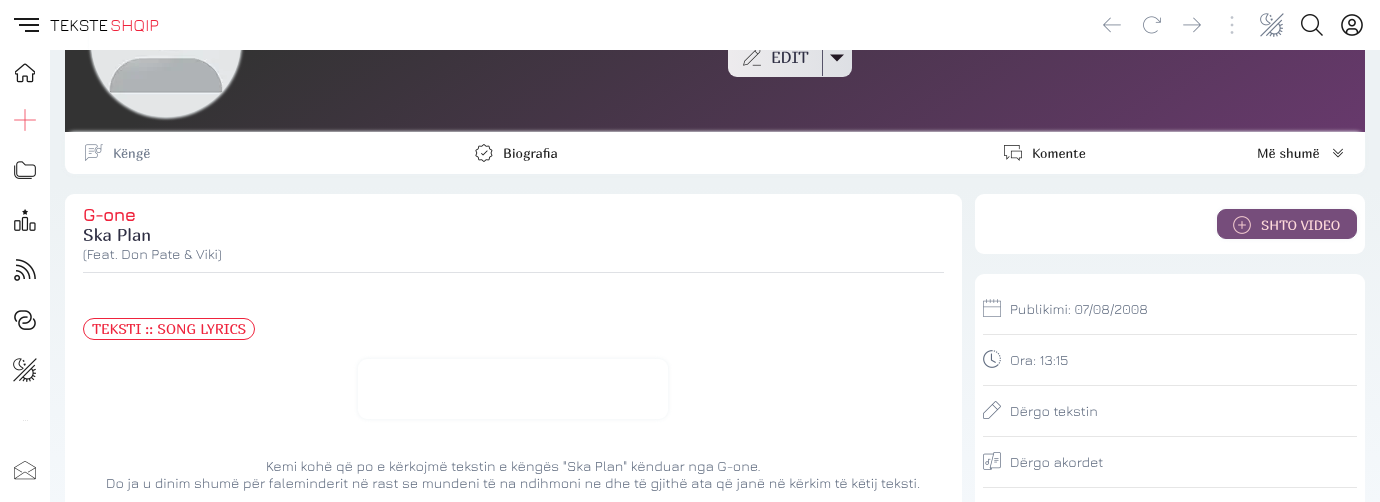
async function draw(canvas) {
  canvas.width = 1380;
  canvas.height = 502;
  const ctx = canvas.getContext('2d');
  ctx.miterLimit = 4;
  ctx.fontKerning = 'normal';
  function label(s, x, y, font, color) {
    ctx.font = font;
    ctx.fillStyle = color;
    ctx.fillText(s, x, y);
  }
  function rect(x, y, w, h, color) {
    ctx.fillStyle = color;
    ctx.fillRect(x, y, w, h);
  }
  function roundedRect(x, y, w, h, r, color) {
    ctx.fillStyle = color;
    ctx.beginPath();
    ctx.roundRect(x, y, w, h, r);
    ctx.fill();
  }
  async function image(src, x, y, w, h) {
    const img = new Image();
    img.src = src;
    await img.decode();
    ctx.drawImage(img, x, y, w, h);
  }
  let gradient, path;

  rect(0, 0, 1380, 502, '#fff');
  gradient = ctx.createLinearGradient(715, -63, 715, 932);
  gradient.addColorStop(0.25, '#edf2f4');
  gradient.addColorStop(0.75, '#f8fbff');
  gradient.addColorStop(1, '#f8fbff');
  ctx.fillStyle = gradient;
  ctx.fillRect(50, 50, 1330, 452);
  gradient = ctx.createLinearGradient(459, -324, 971, 408);
  gradient.addColorStop(0.2, '#333');
  gradient.addColorStop(1, '#67396c');
  ctx.fillStyle = gradient;
  ctx.fillRect(65, 50, 1300, 82);
  ctx.fillStyle = '#edf2f4';
  ctx.filter = 'blur(2px)';
  ctx.beginPath();
  ctx.roundRect(91, -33, 150, 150, 75);
  ctx.fill();
  ctx.filter = 'none';
  ctx.filter = 'blur(1.5px)';
  ctx.beginPath();
  ctx.roundRect(91, -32, 150, 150, 75);
  ctx.fill();
  ctx.filter = 'none';
  gradient = ctx.createLinearGradient(728, 57, 852, 57);
  gradient.addColorStop(0, '#ffffffe6');
  gradient.addColorStop(1, '#edf2f4e6');
  ctx.fillStyle = gradient;
  ctx.beginPath();
  ctx.roundRect(728, 37, 124, 40, 9);
  ctx.fill();
  rect(89, 0, 763, 50, '#fff');
  rect(14, 18, 25, 2, '#1a1a1a');
  rect(19, 24, 20, 2, '#1a1a1a');
  rect(25, 30, 14, 2, '#1a1a1a');
  label('TEKSTE', 50, 31, '300 17px Jura', '#000');
  label('SHQIP', 110, 31, '300 17px Jura', '#ef233c');
  await image('assets/img1.png', 1103, 17, 18, 16);
  await image('assets/img2.png', 1143, 16, 18, 18);
  await image('assets/img3.png', 1183, 17, 18, 16);
  await image('assets/img4.png', 1230, 16, 4, 18);
  await image('assets/img5.png', 1260, 13, 24, 24);
  await image('assets/img6.png', 1301, 14, 22, 22);
  await image('assets/img7.png', 1341, 14, 22, 22);
  await image('assets/img8.png', 15, 63, 20, 20);
  await image('assets/img9.png', 14, 109, 22, 22);
  await image('assets/img10.png', 14, 161, 22, 18);
  await image('assets/img11.png', 14, 209, 22, 22);
  await image('assets/img12.png', 14, 259, 22, 22);
  await image('assets/img13.png', 14, 310, 22, 20);
  await image('assets/img14.png', 13, 358, 24, 24);
  await image('assets/img15.png', 23, 420, 5, 1);
  await image('assets/img16.png', 14, 461, 22, 19);
  await image('assets/img17.png', 91, 50, 150, 67);
  await image('assets/img18.png', 743, 50, 18, 16);
  label('EDIT', 771, 63, '16px Marmelad', '#2e2e43');
  rect(822, 50, 1, 26, '#565369');
  ctx.fillStyle = '#231924';
  path = new Path2D('M830 54.5L837 61.5L844 54.5Z');
  ctx.fill(path);
  ctx.fillStyle = '#edf2f4';
  ctx.filter = 'blur(2px)';
  ctx.beginPath();
  ctx.roundRect(65, 132, 1300, 42, 9);
  ctx.fill();
  ctx.filter = 'none';
  ctx.filter = 'blur(1.5px)';
  ctx.beginPath();
  ctx.roundRect(65, 133, 1300, 42, 9);
  ctx.fill();
  ctx.filter = 'none';
  ctx.fillStyle = '#fff';
  ctx.beginPath();
  ctx.roundRect(65, 132, 1300, 42, [0, 0, 9, 9]);
  ctx.fill();
  await image('assets/img19.png', 85, 144, 18, 17);
  label('Këngë', 113, 158, '13.25px Marmelad', '#6f7a8c');
  await image('assets/img20.png', 475, 144, 18, 18);
  label('Biografia', 503, 158, '13.25px Marmelad', '#1a1a1a');
  await image('assets/img21.png', 1004, 145, 18, 16);
  label('Komente', 1032, 158, '13.25px Marmelad', '#1a1a1a');
  label('Më shumë', 1257, 158, '13.25px Marmelad', '#1a1a1a');
  await image('assets/img22.png', 1333, 148, 10, 10);
  roundedRect(65, 194, 897, 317, 9, '#fff');
  label('G-one', 83, 221, 'bold 18px Jura', '#ef233c');
  label('Ska Plan', 83, 241, '17px Marmelad', '#2e2e43');
  label('(Feat. Don Pate & Viki)', 83, 259, '300 14px Jura', '#5f6b7f');
  rect(83, 272, 861, 1, '#dfe1e5');
  ctx.beginPath();
  ctx.roundRect(83.5, 318.5, 171, 21, 10.5);
  ctx.strokeStyle = '#ef233c';
  ctx.stroke();
  label('TEKSTI :: SONG LYRICS', 92, 334, '14px Marmelad', '#ef233c');
  ctx.fillStyle = '#edf2f4';
  ctx.filter = 'blur(2px)';
  ctx.beginPath();
  ctx.roundRect(358, 359, 310, 60, 9);
  ctx.fill();
  ctx.filter = 'none';
  roundedRect(358, 359, 310, 60, 9, '#fff');
  label('Kemi kohë që po e kërkojmë tekstin e këngës "Ska Plan" kënduar nga G-one.', 266, 471, '300 14px Jura', '#5f6b7f');
  label('Do ja u dinim shumë për faleminderit në rast se mundeni të na ndihmoni ne dhe të gjithë ata që janë në kërkim të këtij teksti.', 106, 488, '300 14px Jura', '#5f6b7f');
  roundedRect(975, 194, 390, 60, 9, '#fff');
  ctx.fillStyle = '#eff3f5';
  ctx.filter = 'blur(2px)';
  ctx.beginPath();
  ctx.roundRect(1217, 209, 140, 30, 9);
  ctx.fill();
  ctx.filter = 'none';
  ctx.fillStyle = '#764d7b';
  ctx.beginPath();
  ctx.roundRect(1217.5, 209.5, 139, 29, 8.5);
  ctx.fill();
  ctx.strokeStyle = '#764d7b';
  ctx.stroke();
  await image('assets/img23.png', 1233, 216, 18, 18);
  label('SHTO VIDEO', 1261, 230, '13.25px Marmelad', '#ffdbdb');
  roundedRect(975, 274, 390, 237, 9, '#fff');
  rect(983, 334, 374, 1, '#e6e6e6');
  await image('assets/img24.png', 983, 299, 18, 18);
  label('Publikimi: 07/08/2008', 1010, 314, '300 14px Jura', '#5f6b7f');
  rect(983, 385, 374, 1, '#e6e6e6');
  await image('assets/img25.png', 983, 350, 18, 18);
  label('Ora: 13:15', 1010, 365, '300 14px Jura', '#5f6b7f');
  rect(983, 436, 374, 1, '#e6e6e6');
  await image('assets/img26.png', 983, 401, 18, 18);
  label('Dërgo tekstin', 1010, 416, '300 14px Jura', '#5f6b7f');
  rect(983, 487, 374, 1, '#e6e6e6');
  await image('assets/img27.png', 983, 452, 18, 18);
  label('Dërgo akordet', 1010, 467, '300 14px Jura', '#5f6b7f');
}

draw(document.querySelector('canvas'));
